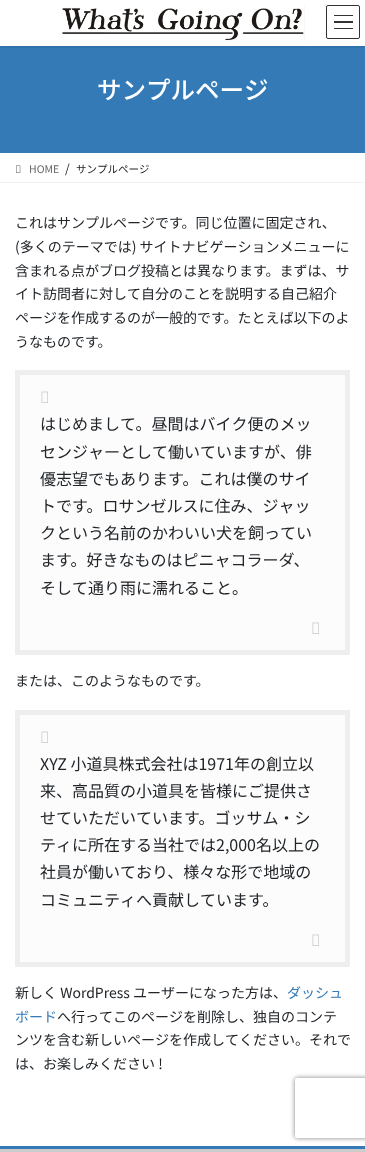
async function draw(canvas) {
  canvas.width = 365;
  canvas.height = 1152;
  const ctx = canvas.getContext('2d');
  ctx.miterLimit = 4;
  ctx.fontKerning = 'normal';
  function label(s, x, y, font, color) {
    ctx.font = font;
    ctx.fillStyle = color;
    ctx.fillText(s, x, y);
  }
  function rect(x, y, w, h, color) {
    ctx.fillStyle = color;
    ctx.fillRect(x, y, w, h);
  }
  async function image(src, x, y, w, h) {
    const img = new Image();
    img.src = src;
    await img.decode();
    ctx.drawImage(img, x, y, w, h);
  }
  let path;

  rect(0, 0, 365, 1152, '#fff');
  rect(0, 46, 365, 107, '#337ab7');
  ctx.save();
  ctx.beginPath();
  ctx.rect(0, 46, 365, 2);
  ctx.clip();
  ctx.fillStyle = '#0000001a';
  ctx.filter = 'blur(1.5px)';
  ctx.beginPath();
  ctx.rect(0, 1, 365, 46);
  ctx.fill();
  ctx.filter = 'none';
  ctx.restore();
  await image('assets/img1.png', 62, 5, 243, 36);
  rect(334, 15, 19, 1, '#333');
  rect(334, 21, 19, 2, '#333');
  rect(334, 28, 19, 1, '#333');
  ctx.beginPath();
  ctx.roundRect(326.5, 5.5, 33, 33, 1.5);
  ctx.strokeStyle = '#333';
  ctx.stroke();
  label('サンプルページ', 97, 99, '500 24.5px Noto Sans JP', '#fff');
  rect(0, 182, 365, 1, '#f2f2f2');
  await image('assets/img2.png', 16, 165, 5, 8);
  label('HOME', 29, 173, '10.5px Noto Sans JP', '#666');
  label('/', 65, 173, '12px Noto Sans JP', '#212529');
  label('サンプルページ', 76, 173, '10.5px Noto Sans JP', '#212529');
  label('これはサンプルページです。同じ位置に固定され、', 15, 228, '14px Noto Sans JP', '#212529');
  label('(多くのテーマでは) サイトナビゲーションメニューに', 15, 252, '14px Noto Sans JP', '#212529');
  label('含まれる点がブログ投稿とは異なります。まずは、サ', 15, 276, '14px Noto Sans JP', '#212529');
  label('イト訪問者に対して自分のことを説明する自己紹介', 15, 299, '14px Noto Sans JP', '#212529');
  label('ページを作成するのが一般的です。たとえば以下のよ', 15, 323, '14px Noto Sans JP', '#212529');
  label('うなものです。', 15, 347, '14px Noto Sans JP', '#212529');
  ctx.fillStyle = '#fcfcfc';
  ctx.beginPath();
  ctx.rect(17.5, 372.5, 330, 280);
  ctx.fill();
  ctx.strokeStyle = '#eee';
  ctx.lineWidth = 5;
  ctx.stroke();
  await image('assets/img3.png', 41, 391, 7, 12);
  label('はじめまして。昼間はバイク便のメッ', 40, 430, '16px Noto Sans JP', '#212529');
  label('センジャーとして働いていますが、俳', 40, 458, '16px Noto Sans JP', '#212529');
  label('優志望でもあります。これは僕のサイ', 40, 485, '16px Noto Sans JP', '#212529');
  label('トです。ロサンゼルスに住み、ジャッ', 40, 512, '16px Noto Sans JP', '#212529');
  label('クという名前のかわいい犬を飼ってい', 40, 539, '16px Noto Sans JP', '#212529');
  label('ます。好きなものはピニャコラーダ、', 40, 566, '16px Noto Sans JP', '#212529');
  label('そして通り雨に濡れること。', 40, 594, '16px Noto Sans JP', '#212529');
  await image('assets/img3.png', 312, 622, 7, 12);
  label('または、このようなものです。', 15, 686, '14px Noto Sans JP', '#212529');
  ctx.fillStyle = '#fcfcfc';
  ctx.beginPath();
  ctx.rect(17.5, 712.5, 330, 252);
  ctx.fill();
  ctx.stroke();
  await image('assets/img3.png', 41, 731, 7, 12);
  label('XYZ 小道具株式会社は1971年の創立以', 40, 770, '16px Noto Sans JP', '#212529');
  label('来、高品質の小道具を皆様にご提供さ', 40, 797, '16px Noto Sans JP', '#212529');
  label('せていただいています。ゴッサム・シ', 40, 824, '16px Noto Sans JP', '#212529');
  label('ティに所在する当社では2,000名以上の', 40, 851, '16px Noto Sans JP', '#212529');
  label('社員が働いており、様々な形で地域の', 40, 878, '16px Noto Sans JP', '#212529');
  label('コミュニティへ貢献しています。', 40, 906, '16px Noto Sans JP', '#212529');
  await image('assets/img3.png', 312, 934, 7, 12);
  label('新しく WordPress ユーザーになった方は、', 15, 998, '14px Noto Sans JP', '#212529');
  label('ダッシュ', 287, 998, '14px Noto Sans JP', '#337ab7');
  label('ボード', 15, 1022, '14px Noto Sans JP', '#337ab7');
  label('へ行ってこのページを削除し、独自のコンテ', 57, 1022, '14px Noto Sans JP', '#212529');
  label('ンツを含む新しいページを作成してください。それで', 15, 1045, '14px Noto Sans JP', '#212529');
  label('は、お楽しみください !', 15, 1069, '14px Noto Sans JP', '#212529');
  rect(0, 1146, 365, 3, '#337ab7');
  ctx.save();
  path = new Path2D('M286 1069H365V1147H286ZM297 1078H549C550 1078 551 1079 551 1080V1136C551 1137 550 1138 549 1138H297C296 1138 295 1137 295 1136V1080C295 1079 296 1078 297 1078Z');
  ctx.clip(path, 'evenodd');
  ctx.fillStyle = '#808080';
  ctx.filter = 'blur(2.5px)';
  ctx.beginPath();
  ctx.roundRect(295, 1078, 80, 60, 2);
  ctx.fill();
  ctx.filter = 'none';
  ctx.restore();
  rect(0, 1149, 365, 3, '#ccc');
}

draw(document.querySelector('canvas'));
